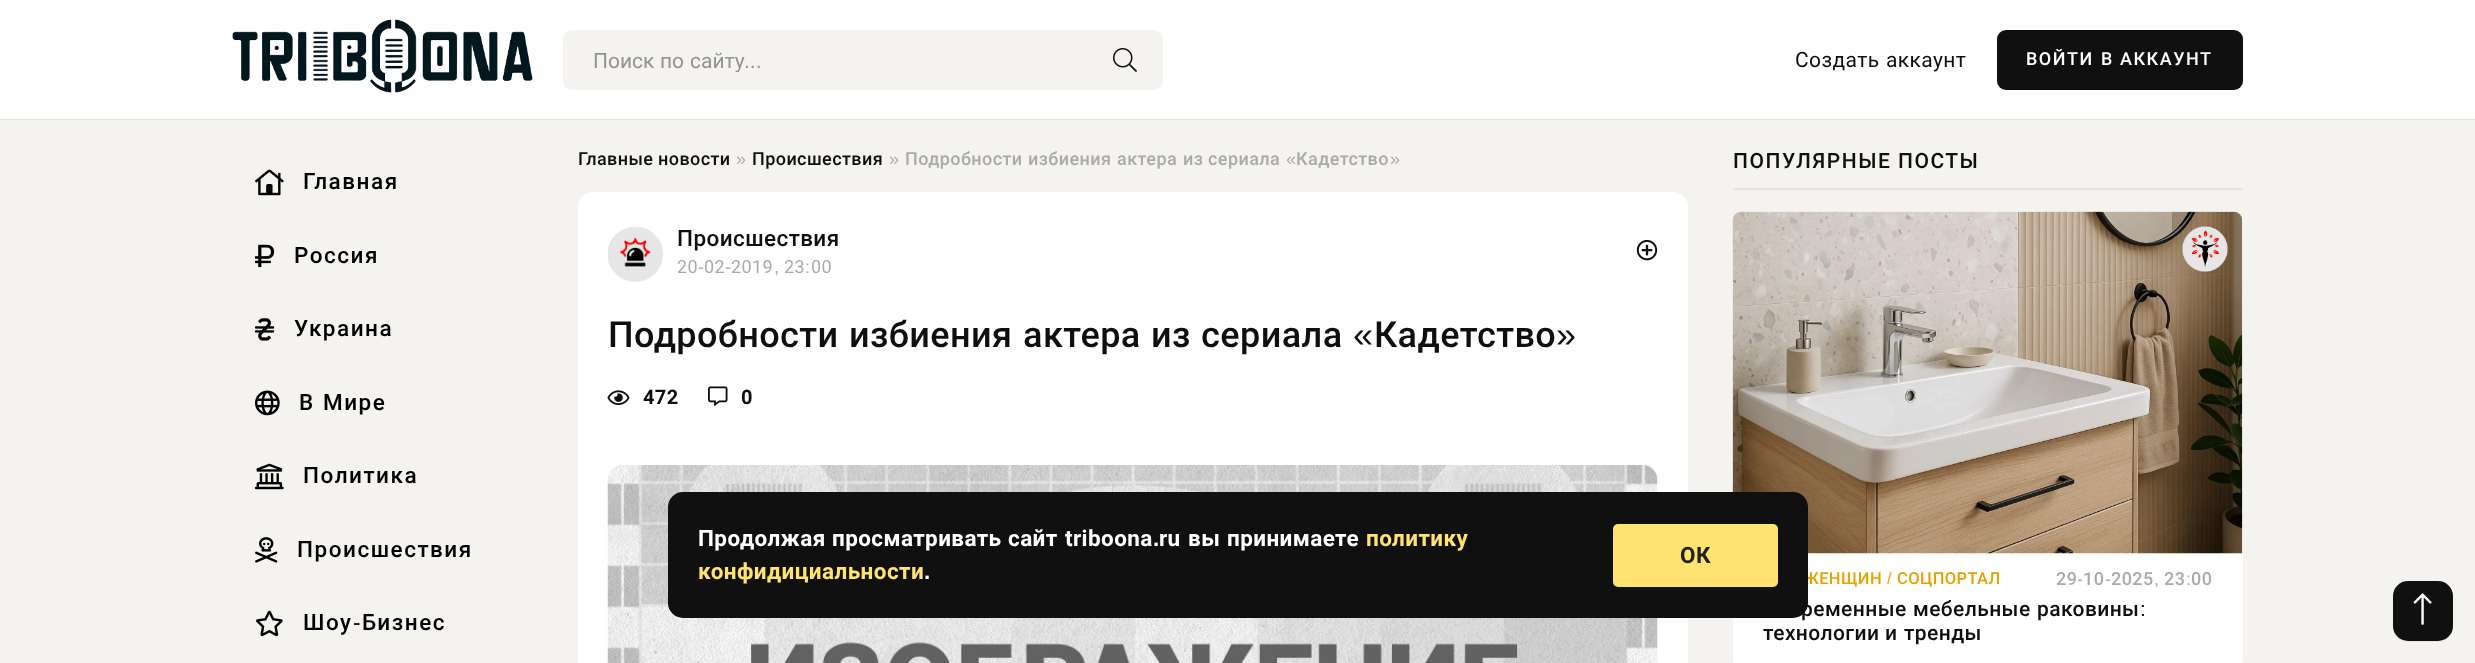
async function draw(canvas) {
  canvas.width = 2475;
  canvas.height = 663;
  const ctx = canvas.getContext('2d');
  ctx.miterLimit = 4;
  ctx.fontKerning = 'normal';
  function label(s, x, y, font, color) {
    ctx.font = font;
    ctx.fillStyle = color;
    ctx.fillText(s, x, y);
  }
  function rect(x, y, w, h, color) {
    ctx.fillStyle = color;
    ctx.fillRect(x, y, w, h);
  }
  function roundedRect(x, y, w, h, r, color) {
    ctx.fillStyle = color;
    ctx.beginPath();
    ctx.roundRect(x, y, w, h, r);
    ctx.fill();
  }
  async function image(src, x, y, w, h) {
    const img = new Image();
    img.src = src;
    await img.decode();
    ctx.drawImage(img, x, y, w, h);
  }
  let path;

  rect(0, 0, 2475, 663, '#f4f3f0');
  rect(0, 119, 2475, 1, '#e5e4e1');
  rect(0, 0, 2475, 119, '#fff');
  await image('assets/img1.png', 232, 19, 301, 74);
  roundedRect(563, 30, 600, 60, 9, '#f4f3f0');
  label('Поиск', 593, 68, '21px Roboto', '#929290');
  label('по', 660, 68, '21px Roboto', '#929290');
  ctx.save();
  ctx.beginPath();
  ctx.rect(593, 48, 495, 24);
  ctx.clip();
  label('сайту', 690, 68, '21px Roboto', '#929290');
  ctx.restore();
  label('...', 744, 68, '21px Liberation Sans', '#929290');
  await image('assets/img2.png', 1113, 48, 24, 24);
  ctx.letterSpacing = '0.4px';
  label('Создать', 1795, 67, '21px Roboto', '#0f0f10');
  label('аккаунт', 1886, 67, '21px Roboto', '#0f0f10');
  roundedRect(1997, 30, 246, 60, 9, '#101010');
  ctx.letterSpacing = '1.5px';
  label('ВОЙТИ', 2026, 65, '500 18px Roboto', '#fff');
  label('В', 2101, 65, '500 18px Roboto', '#fff');
  label('АККАУНТ', 2120, 65, '500 18px Roboto', '#fff');
  await image('assets/img3.png', 255, 169, 29, 27);
  label('Главная', 303, 189, '500 22.5px Roboto', '#000');
  await image('assets/img4.png', 255, 244, 20, 24);
  label('Россия', 294, 263, '500 22.5px Roboto', '#000');
  await image('assets/img5.png', 255, 318, 20, 23);
  label('Украина', 294, 336, '500 22.5px Roboto', '#000');
  await image('assets/img6.png', 255, 390, 25, 26);
  label('В', 299, 410, '500 22.5px Roboto', '#000');
  label('Мире', 323, 410, '500 22.5px Roboto', '#000');
  await image('assets/img7.png', 255, 463, 29, 27);
  label('Политика', 303, 483, '500 22.5px Roboto', '#000');
  await image('assets/img8.png', 255, 537, 23, 26);
  label('Происшествия', 297, 557, '500 22.5px Roboto', '#000');
  await image('assets/img9.png', 256, 610, 27, 27);
  label('Шоу', 303, 630, '500 22.5px Roboto', '#000');
  label('-', 353, 630, '22.5px Liberation Sans', '#000');
  label('Бизнес', 362, 630, '500 22.5px Roboto', '#000');
  ctx.letterSpacing = '0.4px';
  label('Главные', 578, 165, '500 18px Roboto', '#0f0f10');
  label('новости', 658, 165, '500 18px Roboto', '#0f0f10');
  label('»', 736, 165, '18px Liberation Sans', '#aaa');
  label('Происшествия', 752, 165, '500 18px Roboto', '#0f0f10');
  label('»', 889, 165, '18px Liberation Sans', '#aaa');
  label('Подробности', 905, 165, '500 18px Roboto', '#aaa');
  label('избиения', 1028, 165, '500 18px Roboto', '#aaa');
  label('актера', 1117, 165, '500 18px Roboto', '#aaa');
  label('из', 1183, 165, '500 18px Roboto', '#aaa');
  label('сериала', 1208, 165, '500 18px Roboto', '#aaa');
  label('«', 1286, 165, '18px Liberation Sans', '#aaa');
  label('Кадетство', 1296, 165, '500 18px Roboto', '#aaa');
  label('»', 1390, 165, '18px Liberation Sans', '#aaa');
  roundedRect(578, 192, 1110, 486, 15, '#fff');
  await image('assets/img10.png', 608, 226, 55, 56);
  label('Происшествия', 677, 246, '500 22.5px Roboto', '#0f0f10');
  label('20', 677, 273, '18px Roboto', '#aaa');
  label('-', 698, 273, '18px Liberation Sans', '#aaa');
  label('02', 704, 273, '18px Roboto', '#aaa');
  label('-', 725, 273, '18px Liberation Sans', '#aaa');
  label('2019', 731, 273, '18px Roboto', '#aaa');
  label('23', 784, 273, '18px Roboto', '#aaa');
  label(':', 805, 273, '18px Liberation Sans', '#aaa');
  label('00', 811, 273, '18px Roboto', '#aaa');
  label(',', 774, 273, '18px Liberation Sans', '#aaa');
  await image('assets/img11.png', 1636, 240, 22, 21);
  label('Подробности', 608, 347, '500 36px Roboto', '#0f0f10');
  label('избиения', 849, 347, '500 36px Roboto', '#0f0f10');
  label('актера', 1023, 347, '500 36px Roboto', '#0f0f10');
  label('из', 1151, 347, '500 36px Roboto', '#0f0f10');
  label('сериала', 1201, 347, '500 36px Roboto', '#0f0f10');
  label('«', 1353, 347, '36px Liberation Sans', '#0f0f10');
  label('Кадетство', 1374, 347, '500 36px Roboto', '#0f0f10');
  label('»', 1556, 347, '36px Liberation Sans', '#0f0f10');
  await image('assets/img12.png', 607, 390, 23, 15);
  label('472', 643, 404, 'bold 20px Roboto', '#0f0f10');
  await image('assets/img13.png', 708, 386, 20, 20);
  label('0', 741, 404, 'bold 20px Roboto', '#0f0f10');
  await image('assets/img14.png', 607, 465, 1051, 198);
  rect(1733, 188, 510, 2, '#e3e3e3');
  ctx.letterSpacing = '1.5px';
  label('ПОПУЛЯРНЫЕ', 1733, 168, '500 21px Roboto', '#0f0f10');
  label('ПОСТЫ', 1898, 168, '500 21px Roboto', '#0f0f10');
  ctx.fillStyle = '#e5e4e1';
  path = new Path2D('M1733 663C1734 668 1737 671 1742 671H2234C2239 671 2243 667 2243 662V222L2242 218V660C2242 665 2238 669 2234 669H1742C1738 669 1734 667 1733 663Z');
  ctx.fill(path);
  roundedRect(1733, 212, 510, 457, 9, '#fff');
  await image('assets/img15.png', 1732, 211, 511, 343);
  await image('assets/img16.png', 2182, 226, 46, 46);
  ctx.letterSpacing = '0.4px';
  label('ЖЕНЩИН', 1803, 584, '500 16.5px Roboto', '#e7a100');
  label('/', 1887, 584, '16.5px Liberation Sans', '#e7a100');
  label('СОЦПОРТАЛ', 1897, 584, '500 16.5px Roboto', '#e7a100');
  label('29', 2056, 585, '500 18px Roboto', '#aaa');
  label('-', 2077, 585, '18px Liberation Sans', '#aaa');
  label('10', 2083, 585, '500 18px Roboto', '#aaa');
  label('-', 2105, 585, '18px Liberation Sans', '#aaa');
  label('2025', 2111, 585, '500 18px Roboto', '#aaa');
  label('23', 2164, 585, '500 18px Roboto', '#aaa');
  label(':', 2186, 585, '18px Liberation Sans', '#aaa');
  label('00', 2191, 585, '500 18px Roboto', '#aaa');
  label(',', 2154, 585, '18px Liberation Sans', '#aaa');
  label('ременные', 1801, 616, '500 21px Roboto', '#0f0f10');
  label('мебельные', 1913, 616, '500 21px Roboto', '#0f0f10');
  label('раковины', 2037, 616, '500 21px Roboto', '#0f0f10');
  label(':', 2140, 616, '21px Liberation Sans', '#0f0f10');
  label('технологии', 1763, 640, '500 21px Roboto', '#0f0f10');
  label('и', 1885, 640, '500 21px Roboto', '#0f0f10');
  label('тренды', 1904, 640, '500 21px Roboto', '#0f0f10');
  roundedRect(668, 492, 1140, 126, 15, '#101010');
  label('Продолжая', 698, 546, 'bold 22.5px Roboto', '#fff');
  label('просматривать', 832, 546, 'bold 22.5px Roboto', '#fff');
  label('сайт', 1008, 546, 'bold 22.5px Roboto', '#fff');
  label('triboona', 1065, 546, 'bold 22.5px Roboto', '#fff');
  label('.', 1153, 546, 'bold 22.5px Liberation Sans', '#fff');
  label('ru', 1159, 546, 'bold 22.5px Roboto', '#fff');
  label('вы', 1188, 546, 'bold 22.5px Roboto', '#fff');
  label('принимаете', 1227, 546, 'bold 22.5px Roboto', '#fff');
  label('политику', 1366, 546, 'bold 22.5px Roboto', '#ffe371');
  label('конфидициальности', 698, 579, 'bold 22.5px Roboto', '#ffe371');
  label('.', 924, 579, 'bold 22.5px Liberation Sans', '#fff');
  roundedRect(1613, 524, 165, 63, 5, '#ffe371');
  label('ОК', 1680, 563, 'bold 22.5px Roboto', '#212121');
  ctx.fillStyle = '#e5e4e1';
  path = new Path2D('M2394 631C2395 637 2401 642 2408 642H2438C2446 642 2453 635 2453 627V597C2453 595 2453 593 2452 592V596V626C2452 634 2446 640 2438 640H2408C2401 640 2396 637 2394 631Z');
  ctx.fill(path);
  roundedRect(2393, 581, 60, 60, 15, '#101010');
  await image('assets/img17.png', 2413, 593, 19, 32);
}

draw(document.querySelector('canvas'));
